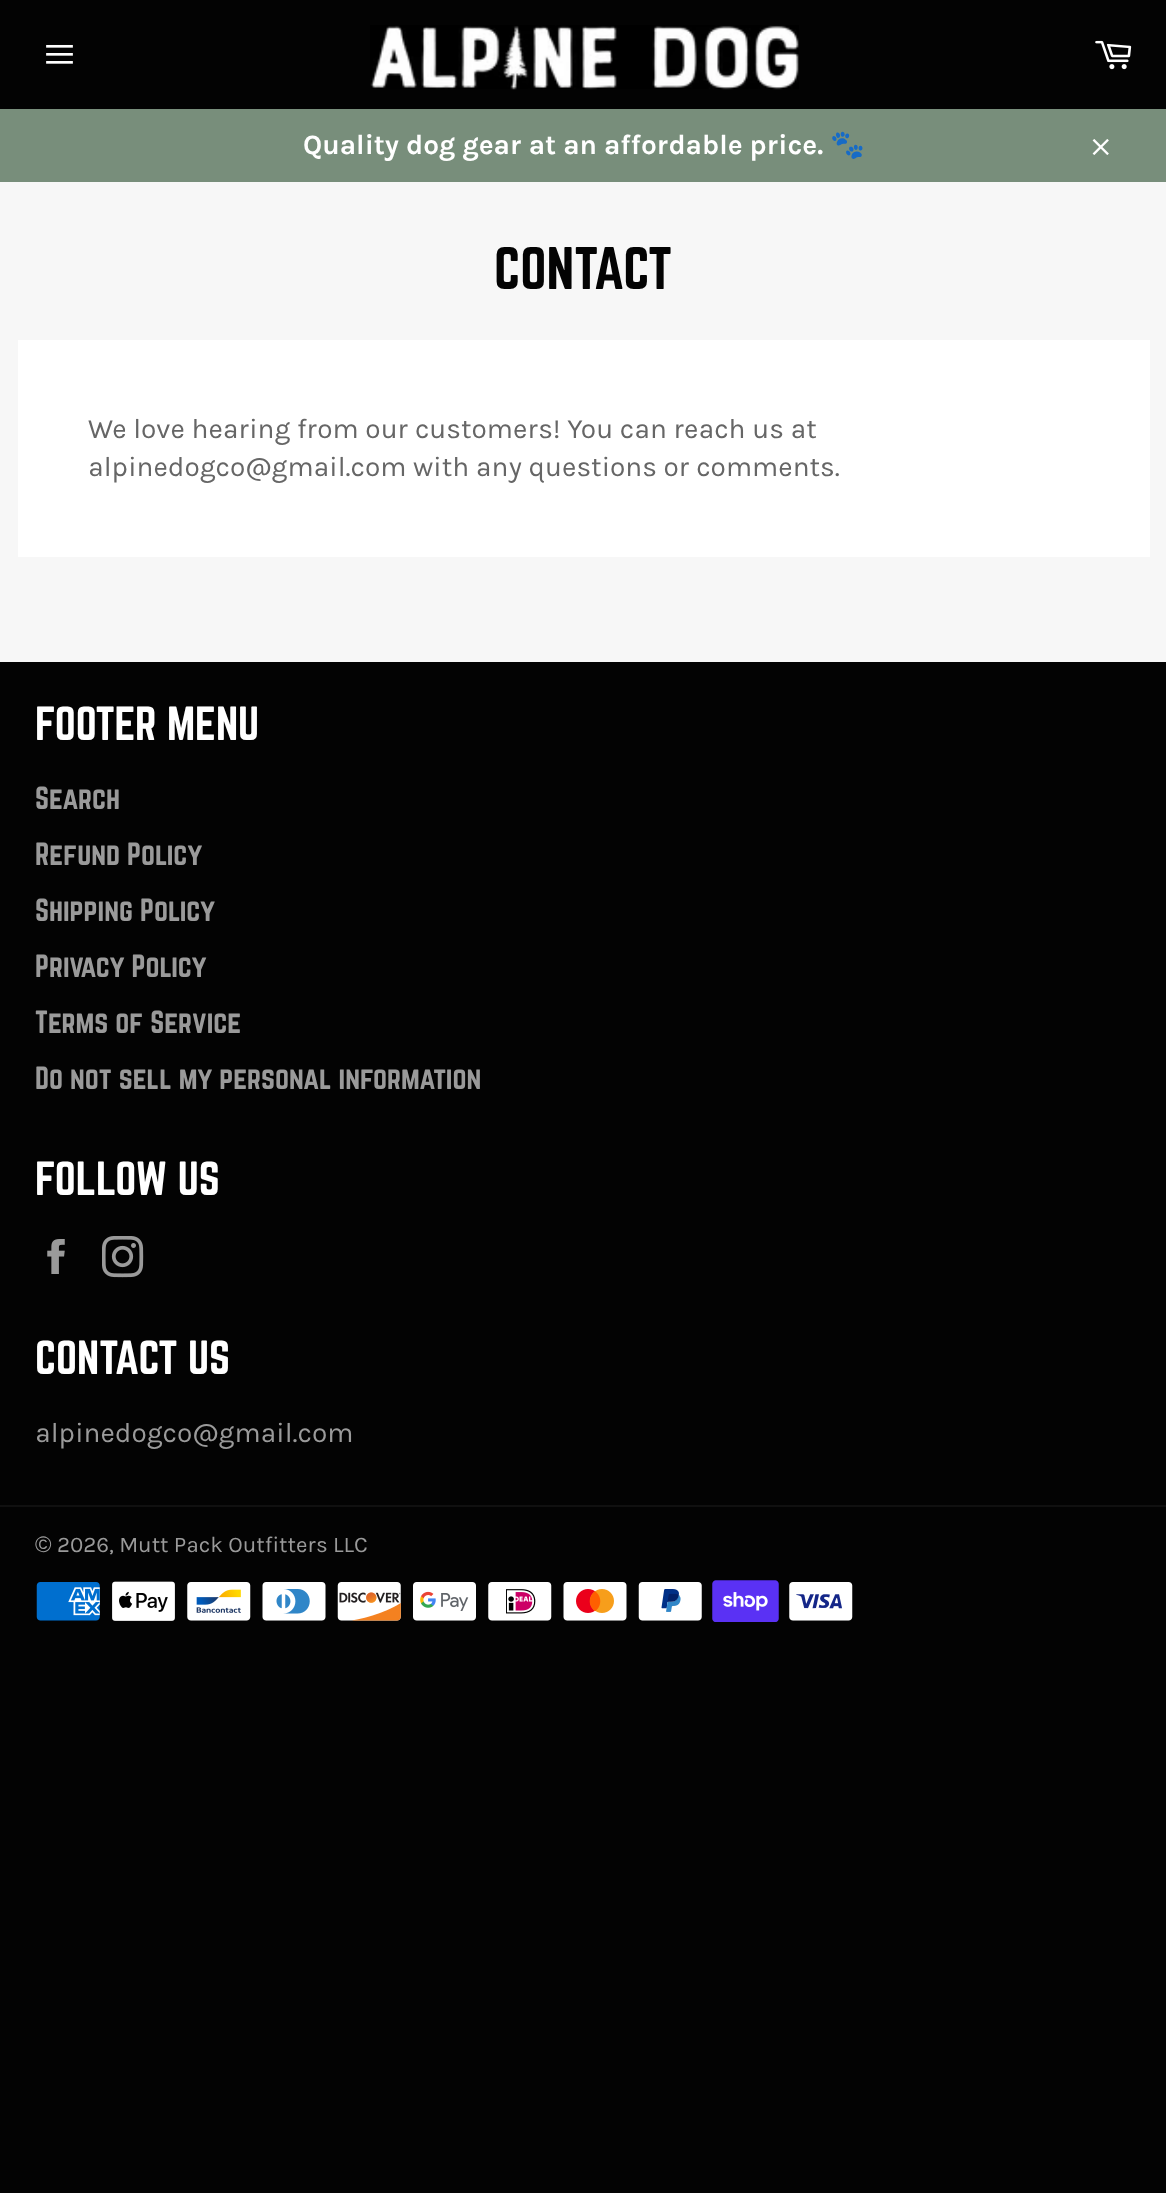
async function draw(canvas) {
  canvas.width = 1166;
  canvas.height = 2193;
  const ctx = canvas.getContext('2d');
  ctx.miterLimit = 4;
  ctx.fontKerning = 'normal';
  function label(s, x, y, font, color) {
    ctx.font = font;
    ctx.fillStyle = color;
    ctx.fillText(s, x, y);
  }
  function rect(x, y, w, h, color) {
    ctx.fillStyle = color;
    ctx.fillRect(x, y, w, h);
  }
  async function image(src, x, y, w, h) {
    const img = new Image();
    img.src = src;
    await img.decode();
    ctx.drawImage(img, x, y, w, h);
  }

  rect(0, 0, 1166, 2193, '#030303');
  rect(0, 182, 1166, 480, '#f7f7f7');
  await image('assets/img1.png', 46, 44, 27, 20);
  await image('assets/img2.png', 370, 25, 429, 65);
  await image('assets/img3.png', 1095, 40, 37, 30);
  rect(0, 109, 1166, 73, '#788e7b');
  label('Quality dog gear at an affordable price.', 303, 154, 'bold 28px Karla', '#fff');
  label('🐾', 830, 154, 'bold 28px Noto Color Emoji', '#fff');
  await image('assets/img4.png', 1092, 139, 17, 16);
  label('CONTACT', 494, 289, '52.5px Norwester', '#030303');
  rect(18, 340, 1132, 217, '#fff');
  label('We love hearing from our customers! You can reach us at', 88, 438, '28px Karla', '#666');
  label('alpinedogco@gmail.com with any questions or comments.', 88, 476, '28px Karla', '#666');
  label('FOOTER MENU', 35, 740, '42px Norwester', '#fff');
  label('Search', 35, 809, '28px Norwester', '#9a9a9a');
  label('Refund Policy', 35, 865, '28px Norwester', '#9a9a9a');
  label('Shipping Policy', 35, 921, '28px Norwester', '#9a9a9a');
  label('Privacy Policy', 35, 977, '28px Norwester', '#9a9a9a');
  label('Terms of Service', 35, 1033, '28px Norwester', '#9a9a9a');
  label('Do not sell my personal information', 35, 1089, '28px Norwester', '#9a9a9a');
  label('FOLLOW US', 35, 1195, '42px Norwester', '#fff');
  await image('assets/img5.png', 47, 1239, 18, 35);
  await image('assets/img6.png', 102, 1236, 42, 42);
  label('CONTACT US', 35, 1374, '42px Norwester', '#fff');
  label('alpinedogco@gmail.com', 35, 1442, '28px Karla', '#9a9a9a');
  rect(0, 1505, 1166, 2, '#101010');
  label('©', 35, 1552, '22.4px Liberation Sans', '#9a9a9a');
  label('2026, Mutt Pack Outfitters LLC', 57, 1552, '22.4px Karla', '#9a9a9a');
  await image('assets/img7.png', 36, 1582, 64, 39);
  await image('assets/img8.png', 112, 1581, 63, 40);
  await image('assets/img9.png', 187, 1582, 64, 39);
  await image('assets/img10.png', 262, 1582, 64, 39);
  await image('assets/img11.png', 337, 1582, 64, 39);
  await image('assets/img12.png', 413, 1582, 63, 39);
  await image('assets/img13.png', 488, 1582, 64, 39);
  await image('assets/img14.png', 563, 1582, 64, 39);
  await image('assets/img15.png', 638, 1582, 64, 39);
  await image('assets/img16.png', 712, 1580, 67, 42);
  await image('assets/img17.png', 789, 1582, 64, 39);
}

draw(document.querySelector('canvas'));
